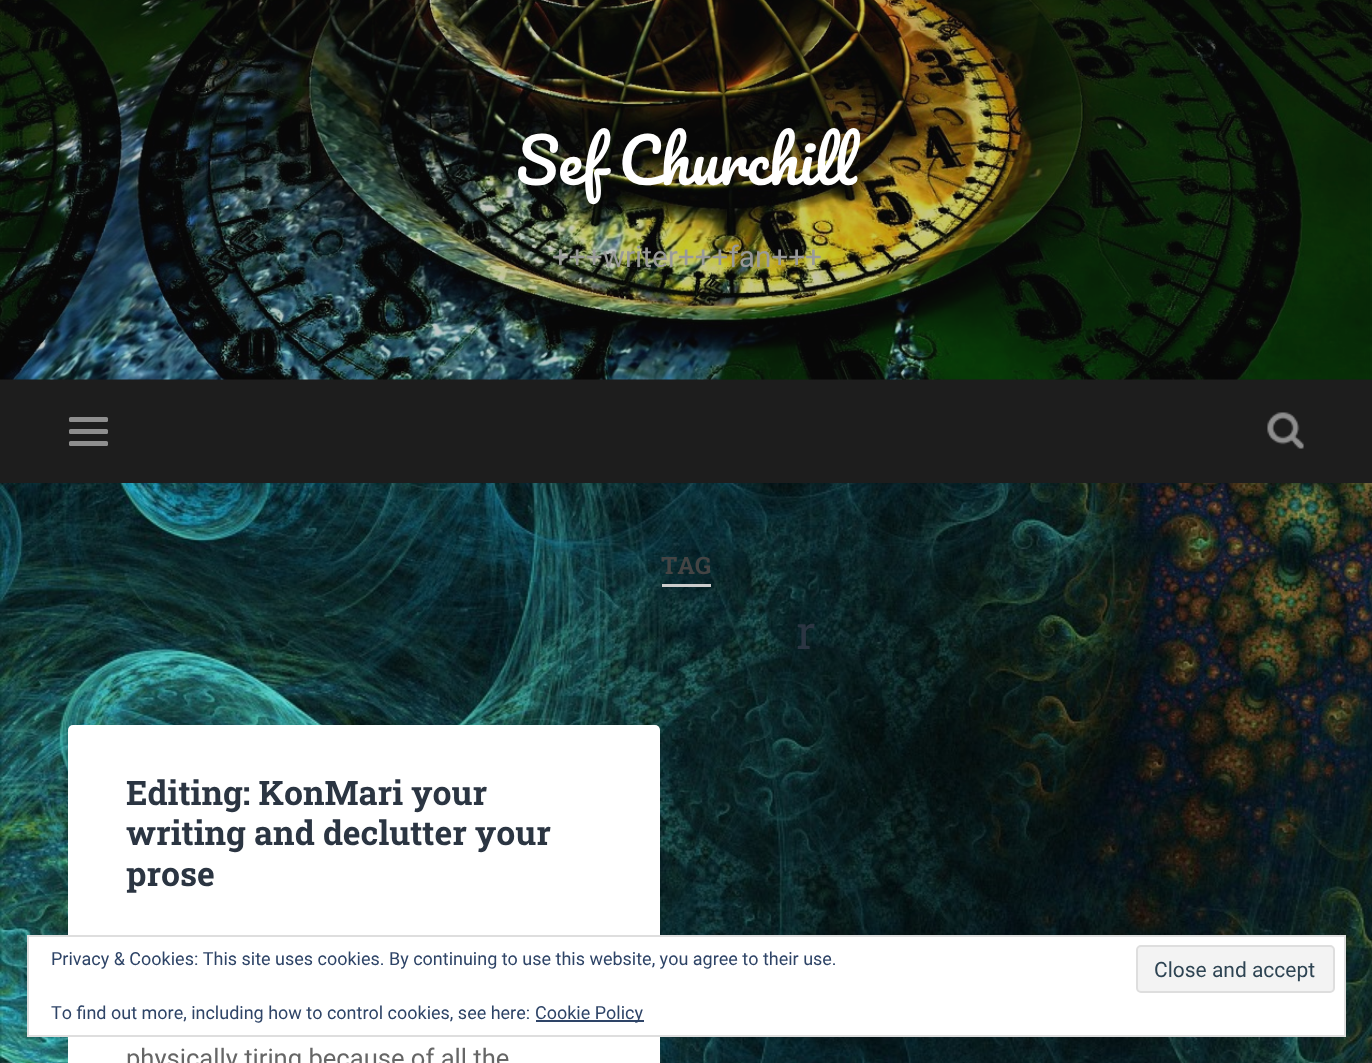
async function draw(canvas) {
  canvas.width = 1372;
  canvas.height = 1063;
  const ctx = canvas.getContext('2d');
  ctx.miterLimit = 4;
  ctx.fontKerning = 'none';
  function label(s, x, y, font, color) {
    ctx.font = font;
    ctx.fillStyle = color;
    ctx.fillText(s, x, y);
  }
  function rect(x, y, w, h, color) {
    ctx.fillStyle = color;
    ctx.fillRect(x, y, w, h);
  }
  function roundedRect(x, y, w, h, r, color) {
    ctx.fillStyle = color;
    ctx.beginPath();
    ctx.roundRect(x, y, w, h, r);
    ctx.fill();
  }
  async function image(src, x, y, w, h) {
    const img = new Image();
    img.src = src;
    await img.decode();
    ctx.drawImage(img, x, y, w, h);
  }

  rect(0, 0, 1372, 1063, '#fff');
  await image('assets/img1.png', 0, 483, 1372, 580);
  rect(0, 379, 1372, 104, '#1d1d1d');
  await image('assets/img2.png', 0, 0, 1372, 380);
  rect(0, 0, 1372, 380, '#1d1d1d40');
  ctx.wordSpacing = '-2px';
  label('Sef Churchill', 516, 185, '60.75px Pacifico', '#fff');
  ctx.wordSpacing = '0px';
  label('+++writer+++fan+++', 552, 267, '29.75px Roboto', '#999');
  roundedRect(69, 417, 39, 5, 1.5, '#8e8e8e');
  roundedRect(69, 429, 39, 5, 1.5, '#8e8e8e');
  roundedRect(69, 441, 39, 5, 1.5, '#8e8e8e');
  await image('assets/img3.png', 1267, 412, 37, 37);
  rect(662, 584, 49, 3, '#ccc');
  label('TAG', 661, 574, 'bold 24px Roboto Slab', '#444');
  label('r', 796, 649, '47px Roboto Slab', '#2b3542');
  ctx.fillStyle = '#0000001a';
  ctx.filter = 'blur(3px)';
  ctx.beginPath();
  ctx.roundRect(68, 726, 592, 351, 5);
  ctx.fill();
  ctx.filter = 'none';
  roundedRect(68, 725, 592, 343, 5, '#fff');
  label('Editing: KonMari your', 126, 805, 'bold 33.75px Roboto Slab', '#2b3542');
  label('writing and declutter your', 126, 845, 'bold 33.75px Roboto Slab', '#2b3542');
  label('prose', 126, 886, 'bold 33.75px Roboto Slab', '#2b3542');
  label('physically tiring because of all the', 126, 1067, '25.6px Roboto', '#666');
  ctx.fillStyle = '#fff';
  ctx.beginPath();
  ctx.rect(28, 936, 1317, 100);
  ctx.fill();
  ctx.strokeStyle = '#dedede';
  ctx.lineWidth = 2;
  ctx.stroke();
  label('Privacy & Cookies: This site uses cookies. By continuing to use this website, you agree to their use.', 51, 965, '18px Roboto', '#2e4467');
  ctx.fillStyle = '#f3f3f3';
  ctx.beginPath();
  ctx.roundRect(1137, 946, 197, 46, 4);
  ctx.fill();
  ctx.stroke();
  label('Close and accept', 1154, 977, '21px Roboto', '#2e4453');
  label('To find out more, including how to control cookies, see here:', 51, 1019, '18px Roboto', '#2e4467');
  rect(536, 1020, 108, 2, '#2e4467');
  label('Cookie Policy', 535, 1019, '18px Roboto', '#2e4467');
}

draw(document.querySelector('canvas'));
